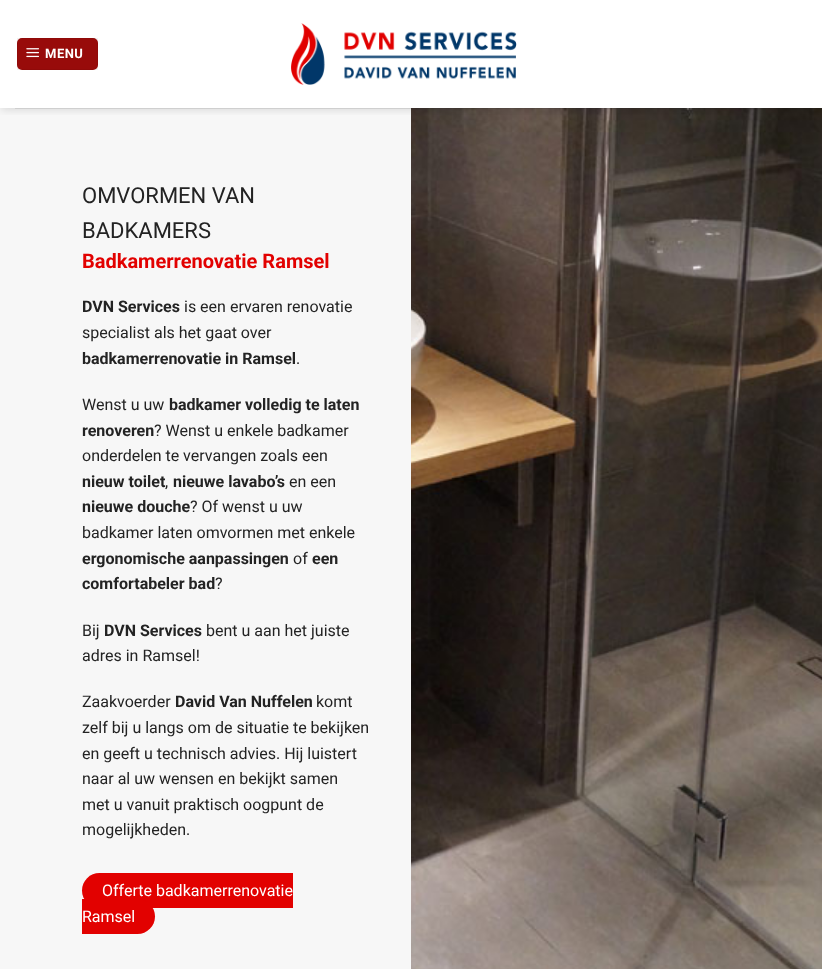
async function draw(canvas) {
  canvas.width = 822;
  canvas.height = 969;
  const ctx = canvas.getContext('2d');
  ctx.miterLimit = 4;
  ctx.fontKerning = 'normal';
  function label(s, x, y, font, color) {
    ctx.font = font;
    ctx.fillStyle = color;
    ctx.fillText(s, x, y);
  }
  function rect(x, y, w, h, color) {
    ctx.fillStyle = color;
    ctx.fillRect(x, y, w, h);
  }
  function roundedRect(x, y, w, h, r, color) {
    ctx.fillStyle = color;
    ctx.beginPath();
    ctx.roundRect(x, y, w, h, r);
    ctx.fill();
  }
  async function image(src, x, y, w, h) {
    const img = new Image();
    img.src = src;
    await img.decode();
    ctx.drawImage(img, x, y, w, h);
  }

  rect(0, 0, 822, 969, '#fff');
  await image('assets/img3.png', 411, 108, 411, 861);
  rect(0, 108, 411, 861, '#f7f7f7');
  ctx.save();
  ctx.beginPath();
  ctx.rect(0, 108, 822, 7);
  ctx.clip();
  ctx.fillStyle = '#00000026';
  ctx.filter = 'blur(5px)';
  ctx.beginPath();
  ctx.rect(1, 1, 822, 108);
  ctx.fill();
  ctx.filter = 'none';
  ctx.restore();
  roundedRect(17, 38, 81, 32, 5, '#980b0a');
  ctx.strokeStyle = '#0000000d';
  ctx.strokeRect(17.5, 38.5, 80, 31);
  await image('assets/img1.png', 26, 48, 13, 10);
  ctx.letterSpacing = '0.5px';
  label('MENU', 45, 58, 'bold 13px Roboto', '#fff');
  await image('assets/img2.png', 291, 23, 226, 62);
  rect(15, 108, 738, 1, '#2323231a');
  ctx.letterSpacing = '0px';
  label('OMVORMEN VAN', 82, 203, '22px Roboto', '#232323');
  label('BADKAMERS', 82, 238, '22px Roboto', '#232323');
  label('Badkamerrenovatie Ramsel', 82, 268, 'bold 20px Roboto', '#e20100');
  label('DVN Services', 82, 312, 'bold 16px Roboto', '#232323');
  label('is een ervaren renovatie', 184, 312, '16px Roboto', '#232323');
  label('specialist als het gaat over', 82, 338, '16px Roboto', '#232323');
  label('badkamerrenovatie in Ramsel', 82, 364, 'bold 16px Roboto', '#232323');
  label('.', 296, 364, '16px Roboto', '#232323');
  label('Wenst u uw', 82, 410, '16px Roboto', '#232323');
  label('badkamer volledig te laten', 169, 410, 'bold 16px Roboto', '#232323');
  label('renoveren', 82, 436, 'bold 16px Roboto', '#232323');
  label('? Wenst u enkele badkamer', 154, 436, '16px Roboto', '#232323');
  label('onderdelen te vervangen zoals een', 82, 461, '16px Roboto', '#232323');
  label('nieuw toilet', 82, 487, 'bold 16px Roboto', '#232323');
  label(',', 165, 487, '16px Roboto', '#232323');
  label('nieuwe lavabo’s', 173, 487, 'bold 16px Roboto', '#232323');
  label('en een', 289, 487, '16px Roboto', '#232323');
  label('nieuwe douche', 82, 512, 'bold 16px Roboto', '#232323');
  label('? Of wenst u uw', 190, 512, '16px Roboto', '#232323');
  label('badkamer laten omvormen met enkele', 82, 538, '16px Roboto', '#232323');
  label('ergonomische aanpassingen', 82, 564, 'bold 16px Roboto', '#232323');
  label('of', 293, 564, '16px Roboto', '#232323');
  label('een', 312, 564, 'bold 16px Roboto', '#232323');
  label('comfortabeler bad', 82, 589, 'bold 16px Roboto', '#232323');
  label('?', 215, 589, '16px Roboto', '#232323');
  label('Bij', 82, 636, '16px Roboto', '#232323');
  label('DVN Services', 104, 636, 'bold 16px Roboto', '#232323');
  label('bent u aan het juiste', 206, 636, '16px Roboto', '#232323');
  label('adres in Ramsel!', 82, 661, '16px Roboto', '#232323');
  label('Zaakvoerder', 82, 707, '16px Roboto', '#232323');
  label('David Van Nuffelen', 175, 707, 'bold 16px Roboto', '#232323');
  label('komt', 316, 707, '16px Roboto', '#232323');
  label('zelf bij u langs om de situatie te bekijken', 82, 733, '16px Roboto', '#232323');
  label('en geeft u technisch advies. Hij luistert', 82, 759, '16px Roboto', '#232323');
  label('naar al uw wensen en bekijkt samen', 82, 784, '16px Roboto', '#232323');
  label('met u vanuit praktisch oogpunt de', 82, 810, '16px Roboto', '#232323');
  label('mogelijkheden.', 82, 835, '16px Roboto', '#232323');
  ctx.fillStyle = '#e20100';
  ctx.beginPath();
  ctx.roundRect(82, 873, 211, 35, [17.5, 0, 0, 17.5]);
  ctx.fill();
  label('Offerte badkamerrenovatie', 102, 896, '16px Roboto', '#fff');
  ctx.fillStyle = '#e20100';
  ctx.beginPath();
  ctx.roundRect(82, 899, 73, 35, [0, 17.5, 17.5, 0]);
  ctx.fill();
  label('Ramsel', 82, 922, '16px Roboto', '#fff');
}

draw(document.querySelector('canvas'));
